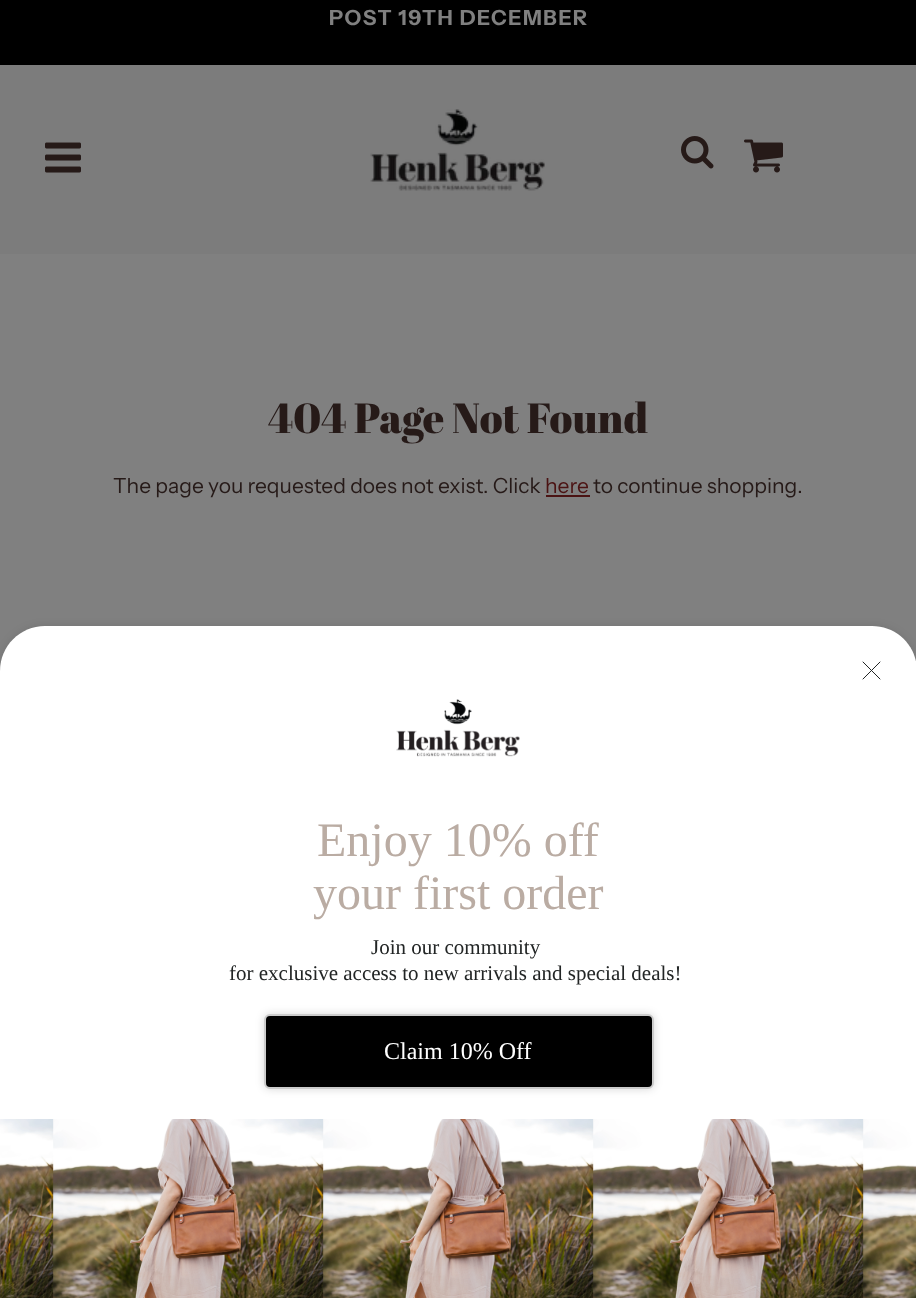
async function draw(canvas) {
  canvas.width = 916;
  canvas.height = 1298;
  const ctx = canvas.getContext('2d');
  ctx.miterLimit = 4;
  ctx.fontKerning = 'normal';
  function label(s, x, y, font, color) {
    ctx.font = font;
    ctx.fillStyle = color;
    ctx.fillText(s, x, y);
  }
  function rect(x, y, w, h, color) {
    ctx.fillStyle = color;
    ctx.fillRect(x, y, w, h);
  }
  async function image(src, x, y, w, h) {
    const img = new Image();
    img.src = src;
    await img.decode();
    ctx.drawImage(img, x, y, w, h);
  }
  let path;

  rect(0, 0, 916, 1298, '#808080');
  rect(0, 0, 916, 65, '#000');
  ctx.letterSpacing = '1.5px';
  label('POST 19TH DECEMBER', 329, 25, 'bold 21px Instrument Sans', '#808080');
  rect(0, 65, 916, 189, '#7c7c7c');
  await image('assets/img1.png', 45, 142, 36, 31);
  await image('assets/img2.png', 370, 109, 175, 82);
  await image('assets/img3.png', 681, 136, 33, 33);
  await image('assets/img4.png', 744, 139, 39, 34);
  ctx.letterSpacing = '0px';
  label('404 Page Not Found', 268, 433, '42px Abril Fatface', '#261a18');
  label('The page you requested does not exist. Click', 113, 493, '21px Instrument Sans', '#261a18');
  label('here', 545, 493, '21px Instrument Sans', '#4b1313');
  rect(546, 495, 44, 2, '#4b1313');
  label('to continue shopping.', 593, 493, '21px Instrument Sans', '#261a18');
  ctx.fillStyle = '#0000001a';
  ctx.filter = 'blur(4.5px)';
  ctx.beginPath();
  ctx.roundRect(0, 626, 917, 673, 45);
  ctx.fill();
  ctx.filter = 'none';
  ctx.fillStyle = '#fff';
  path = new Path2D('M45 626H872C897 626 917 646 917 671V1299H0V671C0 646 20 626 45 626Z');
  ctx.fill(path);
  path = new Path2D('M863 662L880 679M880 662L863 679');
  ctx.strokeStyle = '#222525';
  ctx.lineCap = 'round';
  ctx.stroke(path);
  await image('assets/img5.png', 396, 699, 124, 58);
  label('Enjoy 10% off', 317, 856, '48px Liberation Serif', '#baaca3');
  label('your first order', 313, 909, '48px Liberation Serif', '#baaca3');
  label('Join our community', 371, 954, '21px Liberation Serif', '#222525');
  label('for exclusive access to new arrivals and special deals!', 229, 980, '21px Liberation Serif', '#222525');
  ctx.fillStyle = '#00000029';
  ctx.filter = 'blur(4.5px)';
  ctx.beginPath();
  ctx.roundRect(264, 1014, 390, 75, 6);
  ctx.fill();
  ctx.filter = 'none';
  ctx.fillStyle = '#000';
  ctx.beginPath();
  ctx.roundRect(265, 1015, 388, 73, 5);
  ctx.fill();
  ctx.strokeStyle = '#ccc';
  ctx.lineWidth = 2;
  ctx.stroke();
  label('Claim 10% Off', 384, 1059, '24px Liberation Serif', '#fff');
  await image('assets/img6.png', 0, 1119, 916, 179);
}

draw(document.querySelector('canvas'));
